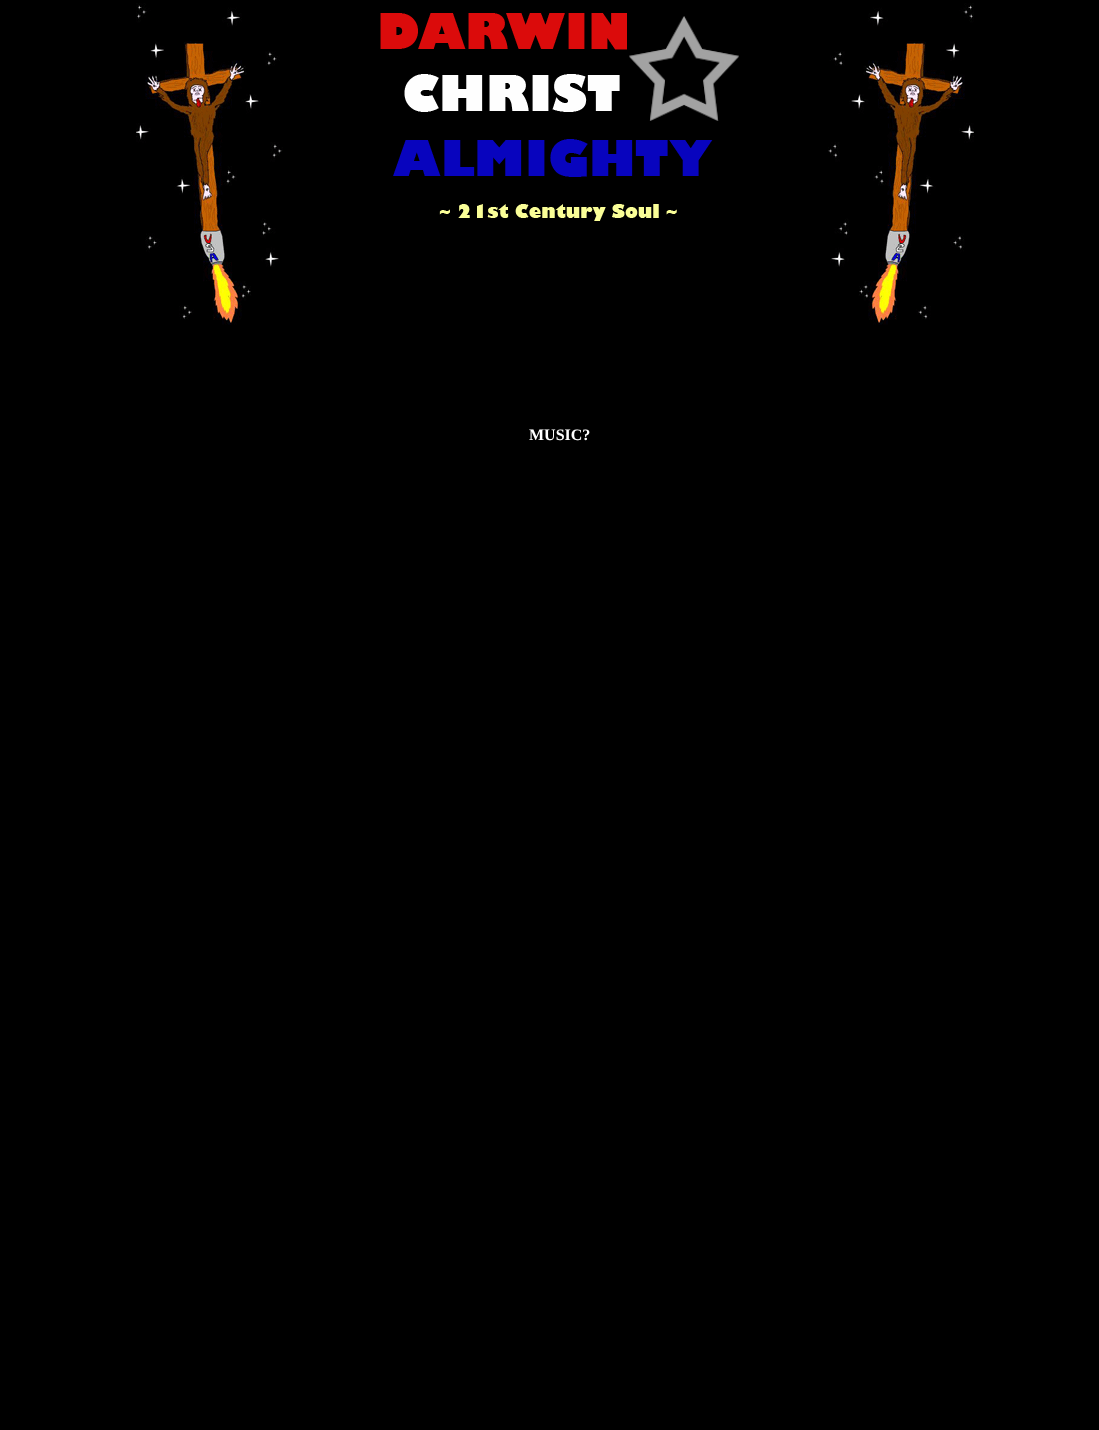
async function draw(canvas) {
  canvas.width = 1099;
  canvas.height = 1430;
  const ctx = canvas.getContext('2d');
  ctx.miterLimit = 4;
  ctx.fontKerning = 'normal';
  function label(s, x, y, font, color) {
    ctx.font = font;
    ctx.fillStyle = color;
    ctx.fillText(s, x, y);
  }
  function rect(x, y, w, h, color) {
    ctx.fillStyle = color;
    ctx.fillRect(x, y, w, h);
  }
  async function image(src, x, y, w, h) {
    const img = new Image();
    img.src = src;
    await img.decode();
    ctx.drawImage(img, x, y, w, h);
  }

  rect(0, 0, 1099, 1430, '#000');
  await image('assets/img1.png', 136, 3, 147, 322);
  await image('assets/img2.png', 380, 13, 359, 164);
  await image('assets/img3.png', 439, 204, 238, 17);
  await image('assets/img4.png', 828, 3, 146, 322);
  label('MUSIC?', 529, 440, 'bold 16px Liberation Serif', '#fff');
}

draw(document.querySelector('canvas'));
